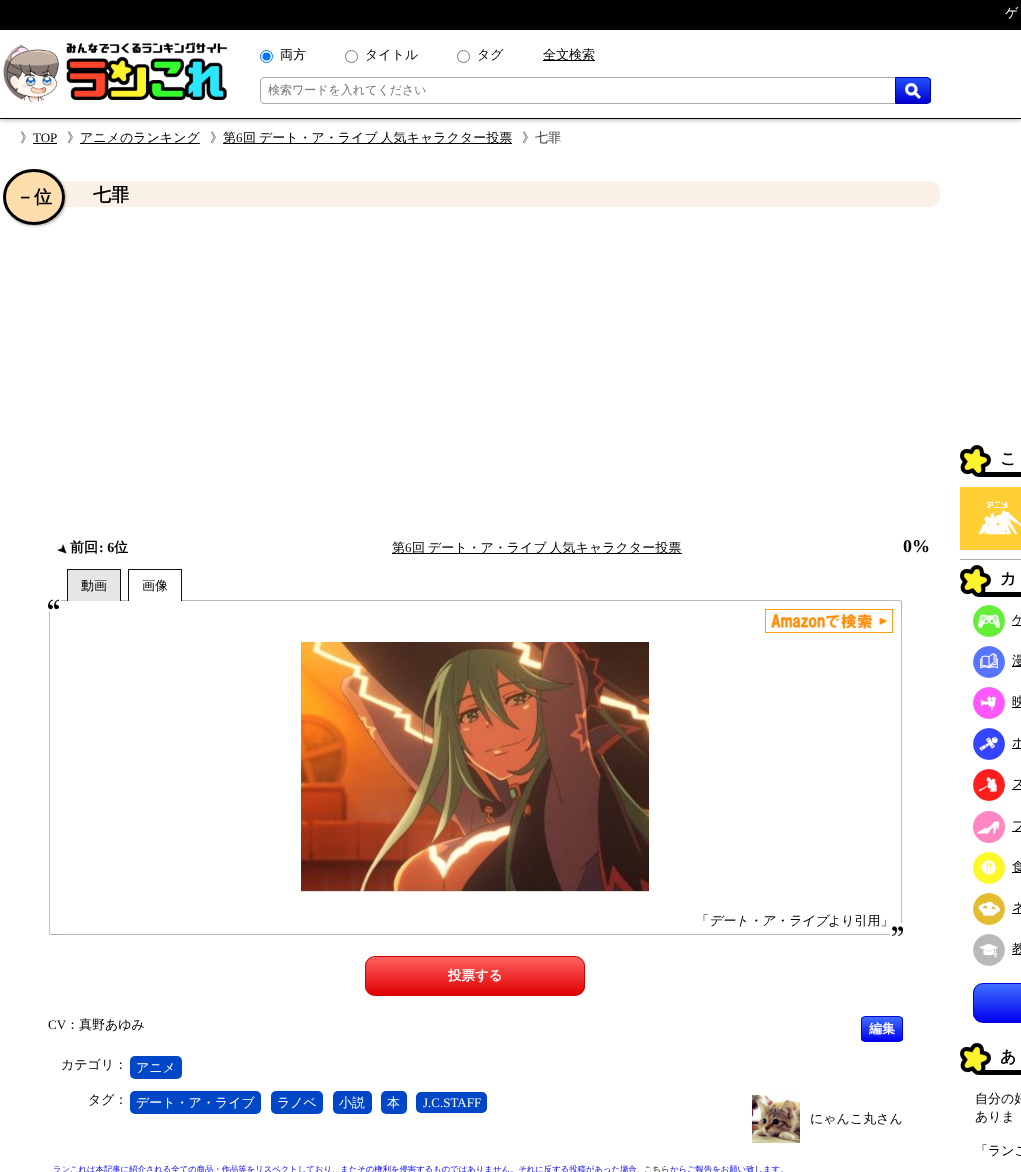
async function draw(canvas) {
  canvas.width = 1021;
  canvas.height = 1172;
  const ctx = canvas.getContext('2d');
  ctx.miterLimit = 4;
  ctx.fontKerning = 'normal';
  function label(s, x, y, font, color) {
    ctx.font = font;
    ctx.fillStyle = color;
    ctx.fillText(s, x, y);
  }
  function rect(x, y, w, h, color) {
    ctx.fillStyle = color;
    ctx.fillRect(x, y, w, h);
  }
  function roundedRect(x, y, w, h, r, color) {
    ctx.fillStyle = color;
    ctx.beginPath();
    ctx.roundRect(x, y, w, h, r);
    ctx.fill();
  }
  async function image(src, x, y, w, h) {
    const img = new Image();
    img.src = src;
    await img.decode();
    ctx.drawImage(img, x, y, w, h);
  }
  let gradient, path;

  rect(0, 0, 1021, 1172, '#fff');
  ctx.save();
  ctx.beginPath();
  ctx.rect(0, 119, 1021, 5);
  ctx.clip();
  ctx.fillStyle = '#0000004d';
  ctx.filter = 'blur(2.5px)';
  ctx.beginPath();
  ctx.rect(0, 1, 1021, 119);
  ctx.fill();
  ctx.filter = 'none';
  ctx.restore();
  rect(0, 118, 1021, 1, '#000');
  rect(0, 0, 1021, 30, '#000');
  label('ゲ', 1005, 17, '500 13px WenQuanYi Zen Hei', '#fff');
  await image('assets/img1.png', 3, 42, 225, 60);
  ctx.beginPath();
  ctx.arc(266.5, 56.5, 6, 0, 2 * Math.PI);
  ctx.strokeStyle = '#0075ff';
  ctx.stroke();
  ctx.fillStyle = '#0075ff';
  ctx.beginPath();
  ctx.arc(266.5, 56.5, 4, 0, 2 * Math.PI);
  ctx.fill();
  label('両方', 280, 59, '500 13px WenQuanYi Zen Hei', '#000');
  ctx.beginPath();
  ctx.arc(351.5, 56.5, 6, 0, 2 * Math.PI);
  ctx.strokeStyle = '#767676';
  ctx.stroke();
  label('タイトル', 365, 59, '500 13px WenQuanYi Zen Hei', '#000');
  ctx.beginPath();
  ctx.arc(463.5, 56.5, 6, 0, 2 * Math.PI);
  ctx.stroke();
  label('タグ', 477, 59, '500 13px WenQuanYi Zen Hei', '#000');
  rect(543, 60, 52, 1, '#000');
  label('全文検索', 543, 59, '500 13px WenQuanYi Zen Hei', '#000');
  ctx.fillStyle = '#aaa';
  path = new Path2D('M264 77H895V104H264C262 104 260 102 260 100V81C260 79 262 77 264 77ZM264 78H895V103H264C262 103 261 102 261 100V81C261 79 262 78 264 78Z');
  ctx.fill(path, 'evenodd');
  label('検索ワードを入れてください', 268, 94, '500 12px WenQuanYi Zen Hei', '#757575');
  ctx.save();
  ctx.beginPath();
  ctx.roundRect(895, 77, 36, 27, [0, 4, 4, 0]);
  ctx.clip();
  gradient = ctx.createLinearGradient(896, 78, 896, 103);
  gradient.addColorStop(0, '#2050ff');
  gradient.addColorStop(1, '#0000d0');
  ctx.fillStyle = gradient;
  ctx.fillRect(896, 78, 35, 25);
  ctx.restore();
  ctx.beginPath();
  ctx.roundRect(895.5, 77.5, 35, 26, [0, 3.5, 3.5, 0]);
  ctx.strokeStyle = '#0000b0';
  ctx.stroke();
  await image('assets/img2.png', 905, 83, 16, 16);
  label('》', 20, 142, '500 13px WenQuanYi Zen Hei', '#333');
  label('TOP', 33, 142, '13px Liberation Serif', '#000');
  rect(33, 143, 24, 1, '#000');
  label('》', 67, 142, '500 13px WenQuanYi Zen Hei', '#333');
  rect(80, 143, 120, 1, '#000');
  label('アニメのランキング', 80, 142, '500 13px WenQuanYi Zen Hei', '#000');
  label('》', 210, 142, '500 13px WenQuanYi Zen Hei', '#333');
  rect(223, 143, 289, 1, '#000');
  label('第', 223, 142, '500 13px WenQuanYi Zen Hei', '#000');
  label('6', 236, 142, '13px Liberation Serif', '#000');
  ctx.wordSpacing = '-1px';
  label('回 デート・ア・ライブ 人気キャラクター投票', 243, 142, '500 13px WenQuanYi Zen Hei', '#000');
  ctx.wordSpacing = '0px';
  label('》七罪', 522, 142, '500 13px WenQuanYi Zen Hei', '#333');
  ctx.fillStyle = '#faf0e6';
  ctx.beginPath();
  ctx.roundRect(10, 181, 930, 26, [0, 10, 10, 10]);
  ctx.fill();
  ctx.fillStyle = '#0000004a';
  ctx.filter = 'blur(1px)';
  ctx.beginPath();
  ctx.roundRect(4, 170, 62, 56, 28);
  ctx.fill();
  ctx.filter = 'none';
  ctx.fillStyle = '#ffdead';
  ctx.beginPath();
  ctx.ellipse(34, 197, 31, 28, 0, 0, 2 * Math.PI);
  ctx.fill();
  path = new Path2D('M34 170.5C50.5 170.5 63.5 182.5 63.5 197C63.5 211.5 50.5 223.5 34 223.5C17.5 223.5 4.5 211.5 4.5 197C4.5 182.5 17.5 170.5 34 170.5Z');
  ctx.strokeStyle = '#000';
  ctx.lineWidth = 3;
  ctx.stroke(path);
  label('－位', 16, 203, 'bold 18px WenQuanYi Zen Hei', '#000');
  label('七罪', 93, 201, 'bold 18px WenQuanYi Zen Hei', '#000');
  await image('assets/img3.png', 57, 544, 10, 10);
  label('前回', 70, 552, 'bold 14px WenQuanYi Zen Hei', '#000');
  label(': 6', 99, 552, 'bold 14px Liberation Serif', '#000');
  label('位', 114, 552, 'bold 14px WenQuanYi Zen Hei', '#000');
  rect(392, 553, 290, 1, '#000');
  label('第', 392, 552, '500 13px WenQuanYi Zen Hei', '#000');
  label('6', 405, 552, '13px Liberation Serif', '#000');
  ctx.wordSpacing = '-1px';
  label('回 デート・ア・ライブ 人気キャラクター投票', 412, 552, '500 13px WenQuanYi Zen Hei', '#000');
  ctx.wordSpacing = '0px';
  label('0%', 903, 552, 'bold 18px Liberation Serif', '#000');
  await image('assets/img4.png', 48, 599, 855, 337);
  rect(68, 570, 52, 31, '#e6e6e6');
  rect(67, 569, 54, 1, '#111');
  rect(120, 569, 1, 32, '#111');
  rect(67, 569, 1, 32, '#111');
  label('動画', 81, 590, '500 13px WenQuanYi Zen Hei', '#000');
  rect(129, 600, 52, 1, '#fff');
  rect(128, 569, 54, 1, '#111');
  rect(181, 569, 1, 32, '#111');
  rect(128, 569, 1, 32, '#111');
  label('画像', 142, 590, '500 13px WenQuanYi Zen Hei', '#000');
  await image('assets/img5.png', 765, 609, 128, 24);
  await image('assets/img6.png', 301, 642, 348, 250);
  label('「', 696, 925, '500 13px WenQuanYi Zen Hei', '#000');
  label('より引用」', 828, 925, '500 13px WenQuanYi Zen Hei', '#000');
  label('デート・ア・ライブ', 709, 925, 'italic 500 13px WenQuanYi Zen Hei', '#000');
  ctx.save();
  ctx.beginPath();
  ctx.roundRect(365, 956, 220, 40, 10);
  ctx.clip();
  gradient = ctx.createLinearGradient(366, 957, 366, 995);
  gradient.addColorStop(0, '#ff6060');
  gradient.addColorStop(1, '#e00000');
  ctx.fillStyle = gradient;
  ctx.fillRect(365, 957, 220, 38);
  ctx.restore();
  ctx.beginPath();
  ctx.roundRect(365.5, 956.5, 219, 39, 9.5);
  ctx.strokeStyle = '#d00000';
  ctx.lineWidth = 1;
  ctx.stroke();
  label('投票する', 448, 980, 'bold 13.5px WenQuanYi Zen Hei', '#fff');
  label('CV', 48, 1029, '13px Liberation Serif', '#000');
  label('：真野あゆみ', 66, 1029, '500 13px WenQuanYi Zen Hei', '#000');
  label('カテゴリ：', 61, 1069, '500 13px WenQuanYi Zen Hei', '#000');
  roundedRect(130, 1056, 52, 23, 5, '#0047c7');
  label('アニメ', 136, 1072, '500 13px WenQuanYi Zen Hei', '#fff');
  label('タグ：', 88, 1104, '500 13px WenQuanYi Zen Hei', '#000');
  roundedRect(130, 1091, 131, 23, 5, '#0047c7');
  label('デート・ア・ライブ', 136, 1107, '500 13px WenQuanYi Zen Hei', '#fff');
  roundedRect(271, 1091, 52, 23, 5, '#0047c7');
  label('ラノベ', 277, 1107, '500 13px WenQuanYi Zen Hei', '#fff');
  roundedRect(333, 1091, 39, 23, 5, '#0047c7');
  label('小説', 339, 1107, '500 13px WenQuanYi Zen Hei', '#fff');
  roundedRect(381, 1091, 26, 23, 5, '#0047c7');
  label('本', 387, 1107, '500 13px WenQuanYi Zen Hei', '#fff');
  roundedRect(416, 1092, 71, 21, 5, '#0047c7');
  label('J.C.STAFF', 423, 1107, '13px Liberation Serif', '#fff');
  ctx.save();
  ctx.beginPath();
  ctx.roundRect(861, 1016, 42, 26, 4);
  ctx.clip();
  gradient = ctx.createLinearGradient(862, 1017, 862, 1041);
  gradient.addColorStop(0, '#4070ff');
  gradient.addColorStop(1, '#0000f0');
  ctx.fillStyle = gradient;
  ctx.fillRect(861, 1017, 42, 24);
  ctx.restore();
  ctx.beginPath();
  ctx.roundRect(861.5, 1016.5, 41, 25, 3.5);
  ctx.strokeStyle = '#0000e0';
  ctx.stroke();
  label('編集', 869, 1033, 'bold 13px WenQuanYi Zen Hei', '#fff');
  await image('assets/img7.png', 752, 1095, 48, 48);
  label('にゃんこ丸さん', 810, 1123, '500 13px WenQuanYi Zen Hei', '#000');
  label('ランこれは本記事に紹介される全ての商品・作品等をリスペクトしており、またその権利を侵害するものではありません。それに反する投稿があった場合、', 53, 1172, '500 8.33px WenQuanYi Zen Hei', '#00f');
  label('こちら', 644, 1172, '500 8.33px WenQuanYi Zen Hei', '#000');
  label('からご報告をお願い致します。', 670, 1172, '500 8.33px WenQuanYi Zen Hei', '#00f');
  await image('assets/img8.png', 960, 445, 31, 32);
  label('こ', 1000, 464, 'bold 16px WenQuanYi Zen Hei', '#000');
  rect(980, 472, 41, 5, '#000');
  rect(960, 559, 61, 1, '#aaa');
  await image('assets/img9.png', 960, 487, 61, 63);
  await image('assets/img8.png', 960, 565, 31, 32);
  label('カ', 1000, 584, 'bold 16px WenQuanYi Zen Hei', '#000');
  rect(980, 592, 41, 5, '#000');
  await image('assets/img10.png', 973, 605, 32, 32);
  rect(1012, 625, 9, 1, '#000');
  label('ゲ', 1012, 624, '500 13px WenQuanYi Zen Hei', '#000');
  await image('assets/img11.png', 973, 646, 32, 32);
  rect(1012, 666, 9, 1, '#000');
  label('漫', 1012, 665, '500 13px WenQuanYi Zen Hei', '#000');
  await image('assets/img12.png', 973, 687, 32, 32);
  rect(1012, 707, 9, 1, '#000');
  label('映', 1012, 706, '500 13px WenQuanYi Zen Hei', '#000');
  await image('assets/img13.png', 973, 728, 32, 32);
  rect(1012, 748, 9, 1, '#000');
  label('ホ', 1012, 747, '500 13px WenQuanYi Zen Hei', '#000');
  await image('assets/img14.png', 973, 769, 32, 32);
  label('ス', 1012, 788, '500 13px WenQuanYi Zen Hei', '#000');
  rect(1012, 789, 9, 1, '#000');
  await image('assets/img15.png', 973, 811, 32, 32);
  rect(1012, 831, 9, 1, '#000');
  label('フ', 1012, 830, '500 13px WenQuanYi Zen Hei', '#000');
  await image('assets/img16.png', 973, 852, 32, 32);
  rect(1012, 872, 9, 1, '#000');
  label('食', 1012, 871, '500 13px WenQuanYi Zen Hei', '#000');
  await image('assets/img17.png', 973, 893, 32, 32);
  rect(1012, 913, 9, 1, '#000');
  label('ネ', 1012, 912, '500 13px WenQuanYi Zen Hei', '#000');
  await image('assets/img18.png', 973, 934, 32, 32);
  rect(1012, 954, 9, 1, '#000');
  label('教', 1012, 953, '500 13px WenQuanYi Zen Hei', '#000');
  ctx.save();
  ctx.beginPath();
  ctx.roundRect(973, 983, 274, 40, 10);
  ctx.clip();
  gradient = ctx.createLinearGradient(974, 984, 974, 1022);
  gradient.addColorStop(0, '#4070ff');
  gradient.addColorStop(1, '#0000f0');
  ctx.fillStyle = gradient;
  ctx.fillRect(973, 984, 48, 38);
  ctx.restore();
  ctx.beginPath();
  ctx.roundRect(973.5, 983.5, 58, 39, 9.5);
  ctx.stroke();
  await image('assets/img8.png', 960, 1043, 31, 32);
  label('あ', 1000, 1062, 'bold 16px WenQuanYi Zen Hei', '#000');
  rect(980, 1070, 41, 5, '#000');
  label('自分の好', 975, 1103, '500 13px WenQuanYi Zen Hei', '#000');
  label('ありま', 975, 1121, '500 13px WenQuanYi Zen Hei', '#000');
  label('「ランこ', 975, 1155, '500 13px WenQuanYi Zen Hei', '#000');
}

draw(document.querySelector('canvas'));
